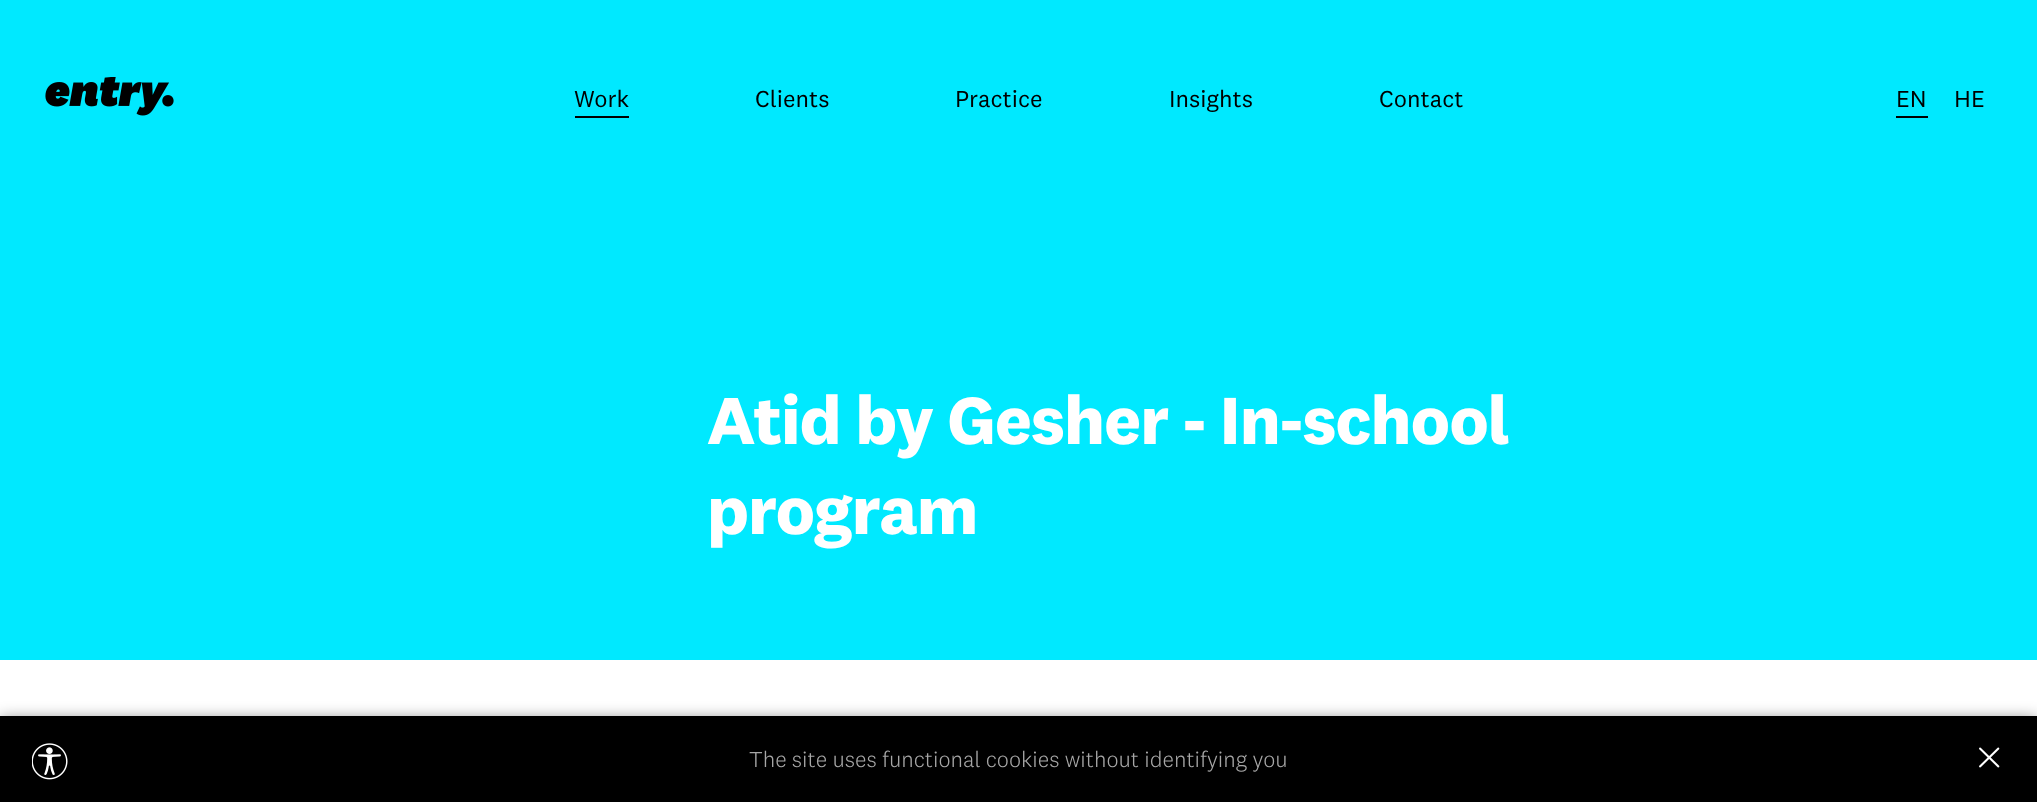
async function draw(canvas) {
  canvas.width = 2037;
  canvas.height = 802;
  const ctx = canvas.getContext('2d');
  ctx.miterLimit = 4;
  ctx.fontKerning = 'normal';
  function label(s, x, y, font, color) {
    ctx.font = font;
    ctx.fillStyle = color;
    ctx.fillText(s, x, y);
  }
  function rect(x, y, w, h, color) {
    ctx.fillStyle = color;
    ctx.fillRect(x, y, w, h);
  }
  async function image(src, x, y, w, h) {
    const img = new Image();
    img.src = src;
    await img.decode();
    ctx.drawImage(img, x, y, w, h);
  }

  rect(0, 0, 2037, 802, '#fff');
  rect(0, 0, 2037, 660, '#00e9ff');
  await image('assets/img1.png', 45, 77, 129, 39);
  label('Work', 574, 107, '24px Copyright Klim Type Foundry', '#000');
  rect(575, 116, 54, 2, '#000');
  label('Clients', 755, 107, '24px Copyright Klim Type Foundry', '#000');
  label('Practice', 955, 107, '24px Copyright Klim Type Foundry', '#000');
  label('Insights', 1169, 107, '24px Copyright Klim Type Foundry', '#000');
  label('Contact', 1379, 107, '24px Copyright Klim Type Foundry', '#000');
  label('EN', 1896, 107, '24px Copyright Klim Type Foundry', '#000');
  rect(1896, 116, 32, 2, '#000');
  label('HE', 1954, 107, '24px Copyright Klim Type Foundry', '#000');
  ctx.letterSpacing = '-0.9px';
  label('Atid by Gesher - In-school', 707, 444, 'bold 69px Copyright Klim Type Foundry', '#fff');
  label('program', 707, 534, 'bold 69px Copyright Klim Type Foundry', '#fff');
  ctx.fillStyle = '#00000080';
  ctx.filter = 'blur(8px)';
  ctx.beginPath();
  ctx.rect(0, 719, 2037, 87);
  ctx.fill();
  ctx.filter = 'none';
  rect(0, 716, 2037, 86, '#000');
  await image('assets/img2.png', 32, 743, 36, 37);
  ctx.letterSpacing = '0px';
  label('The site uses functional cookies without identifying you', 749, 767, '300 22.5px "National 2"', '#a7a7a7');
  await image('assets/img3.png', 1979, 747, 21, 21);
}

draw(document.querySelector('canvas'));
